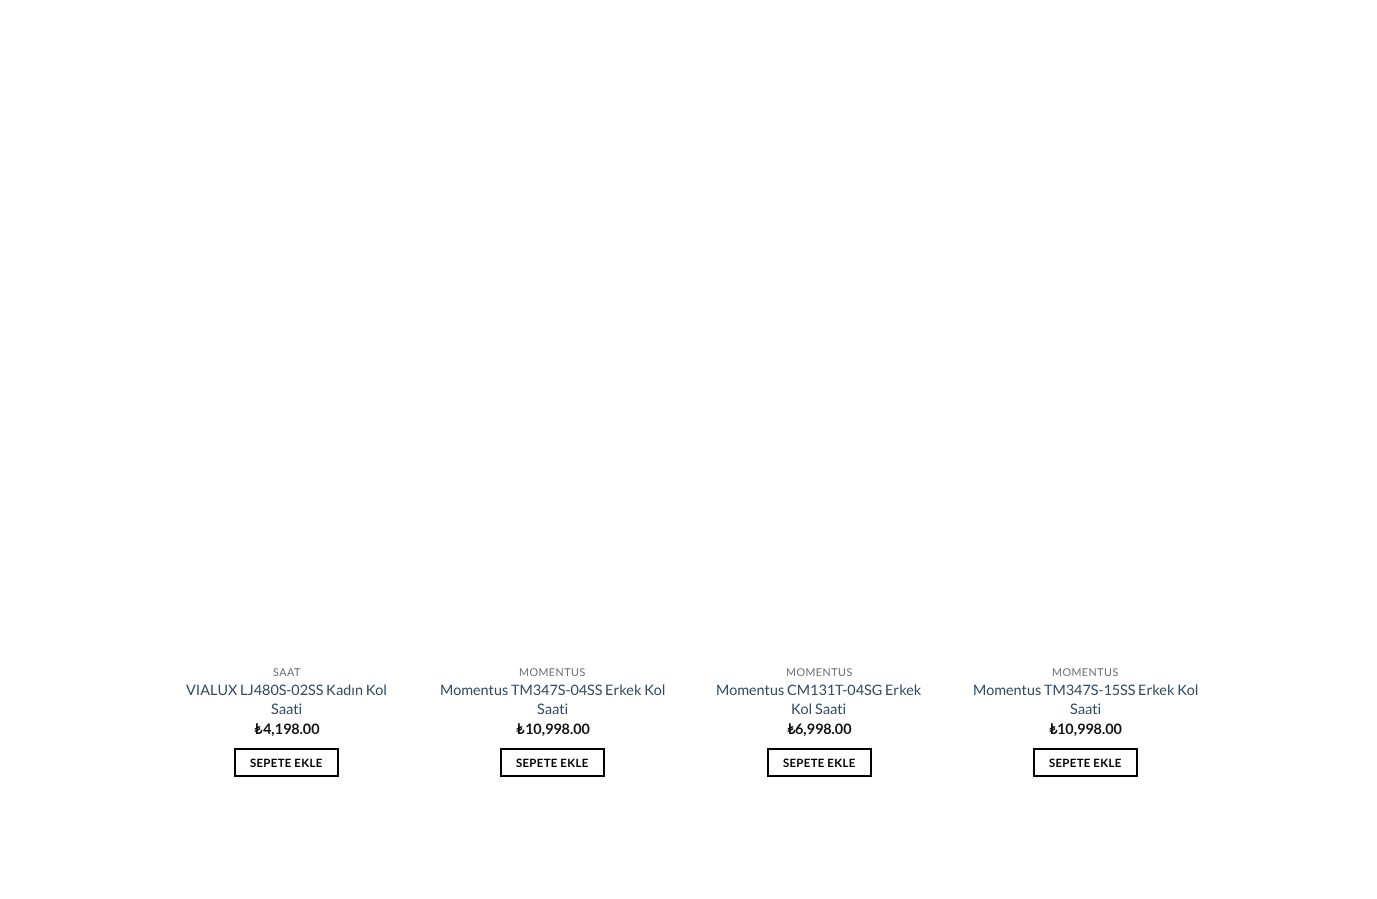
async function draw(canvas) {
  canvas.width = 1377;
  canvas.height = 899;
  const ctx = canvas.getContext('2d');
  ctx.miterLimit = 4;
  ctx.fontKerning = 'normal';
  function label(s, x, y, font, color) {
    ctx.font = font;
    ctx.fillStyle = color;
    ctx.fillText(s, x, y);
  }
  function rect(x, y, w, h, color) {
    ctx.fillStyle = color;
    ctx.fillRect(x, y, w, h);
  }

  rect(0, 0, 1377, 899, '#fff');
  ctx.letterSpacing = '0.5px';
  label('SAAT', 273, 676, '10.75px Lato', '#6e6e6e');
  ctx.letterSpacing = '0px';
  label('VIALUX LJ480S-02SS Kadın Kol', 186, 695, '14.4px Lato', '#334862');
  label('Saati', 271, 714, '14.4px Lato', '#334862');
  label('₺', 254, 734, 'bold 14.4px Lato', '#111');
  label('4,198.00', 263, 734, 'bold 14.4px "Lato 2"', '#111');
  ctx.strokeStyle = '#000';
  ctx.lineWidth = 2;
  ctx.strokeRect(235, 749, 103, 27);
  ctx.letterSpacing = '0.3px';
  label('SEPETE EKLE', 250, 767, 'bold 11.5px "Lato 2"', '#000');
  ctx.letterSpacing = '0.5px';
  label('MOMENTUS', 519, 676, '10.75px Lato', '#6e6e6e');
  ctx.letterSpacing = '0px';
  label('Momentus TM347S-04SS Erkek Kol', 440, 695, '14.4px Lato', '#334862');
  label('Saati', 537, 714, '14.4px Lato', '#334862');
  label('₺', 516, 734, 'bold 14.4px Lato', '#111');
  label('10,998.00', 525, 734, 'bold 14.4px "Lato 2"', '#111');
  ctx.strokeRect(501, 749, 103, 27);
  ctx.letterSpacing = '0.3px';
  label('SEPETE EKLE', 516, 767, 'bold 11.5px "Lato 2"', '#000');
  ctx.letterSpacing = '0.5px';
  label('MOMENTUS', 786, 676, '10.75px Lato', '#6e6e6e');
  ctx.letterSpacing = '0px';
  label('Momentus CM131T-04SG Erkek', 716, 695, '14.4px Lato', '#334862');
  label('Kol Saati', 791, 714, '14.4px Lato', '#334862');
  label('₺', 787, 734, 'bold 14.4px Lato', '#111');
  label('6,998.00', 795, 734, 'bold 14.4px "Lato 2"', '#111');
  ctx.strokeRect(768, 749, 103, 27);
  ctx.letterSpacing = '0.3px';
  label('SEPETE EKLE', 783, 767, 'bold 11.5px "Lato 2"', '#000');
  ctx.letterSpacing = '0.5px';
  label('MOMENTUS', 1052, 676, '10.75px Lato', '#6e6e6e');
  ctx.letterSpacing = '0px';
  label('Momentus TM347S-15SS Erkek Kol', 973, 695, '14.4px Lato', '#334862');
  label('Saati', 1070, 714, '14.4px Lato', '#334862');
  label('₺', 1049, 734, 'bold 14.4px Lato', '#111');
  label('10,998.00', 1057, 734, 'bold 14.4px "Lato 2"', '#111');
  ctx.strokeRect(1034, 749, 103, 27);
  ctx.letterSpacing = '0.3px';
  label('SEPETE EKLE', 1049, 767, 'bold 11.5px "Lato 2"', '#000');
}

draw(document.querySelector('canvas'));
